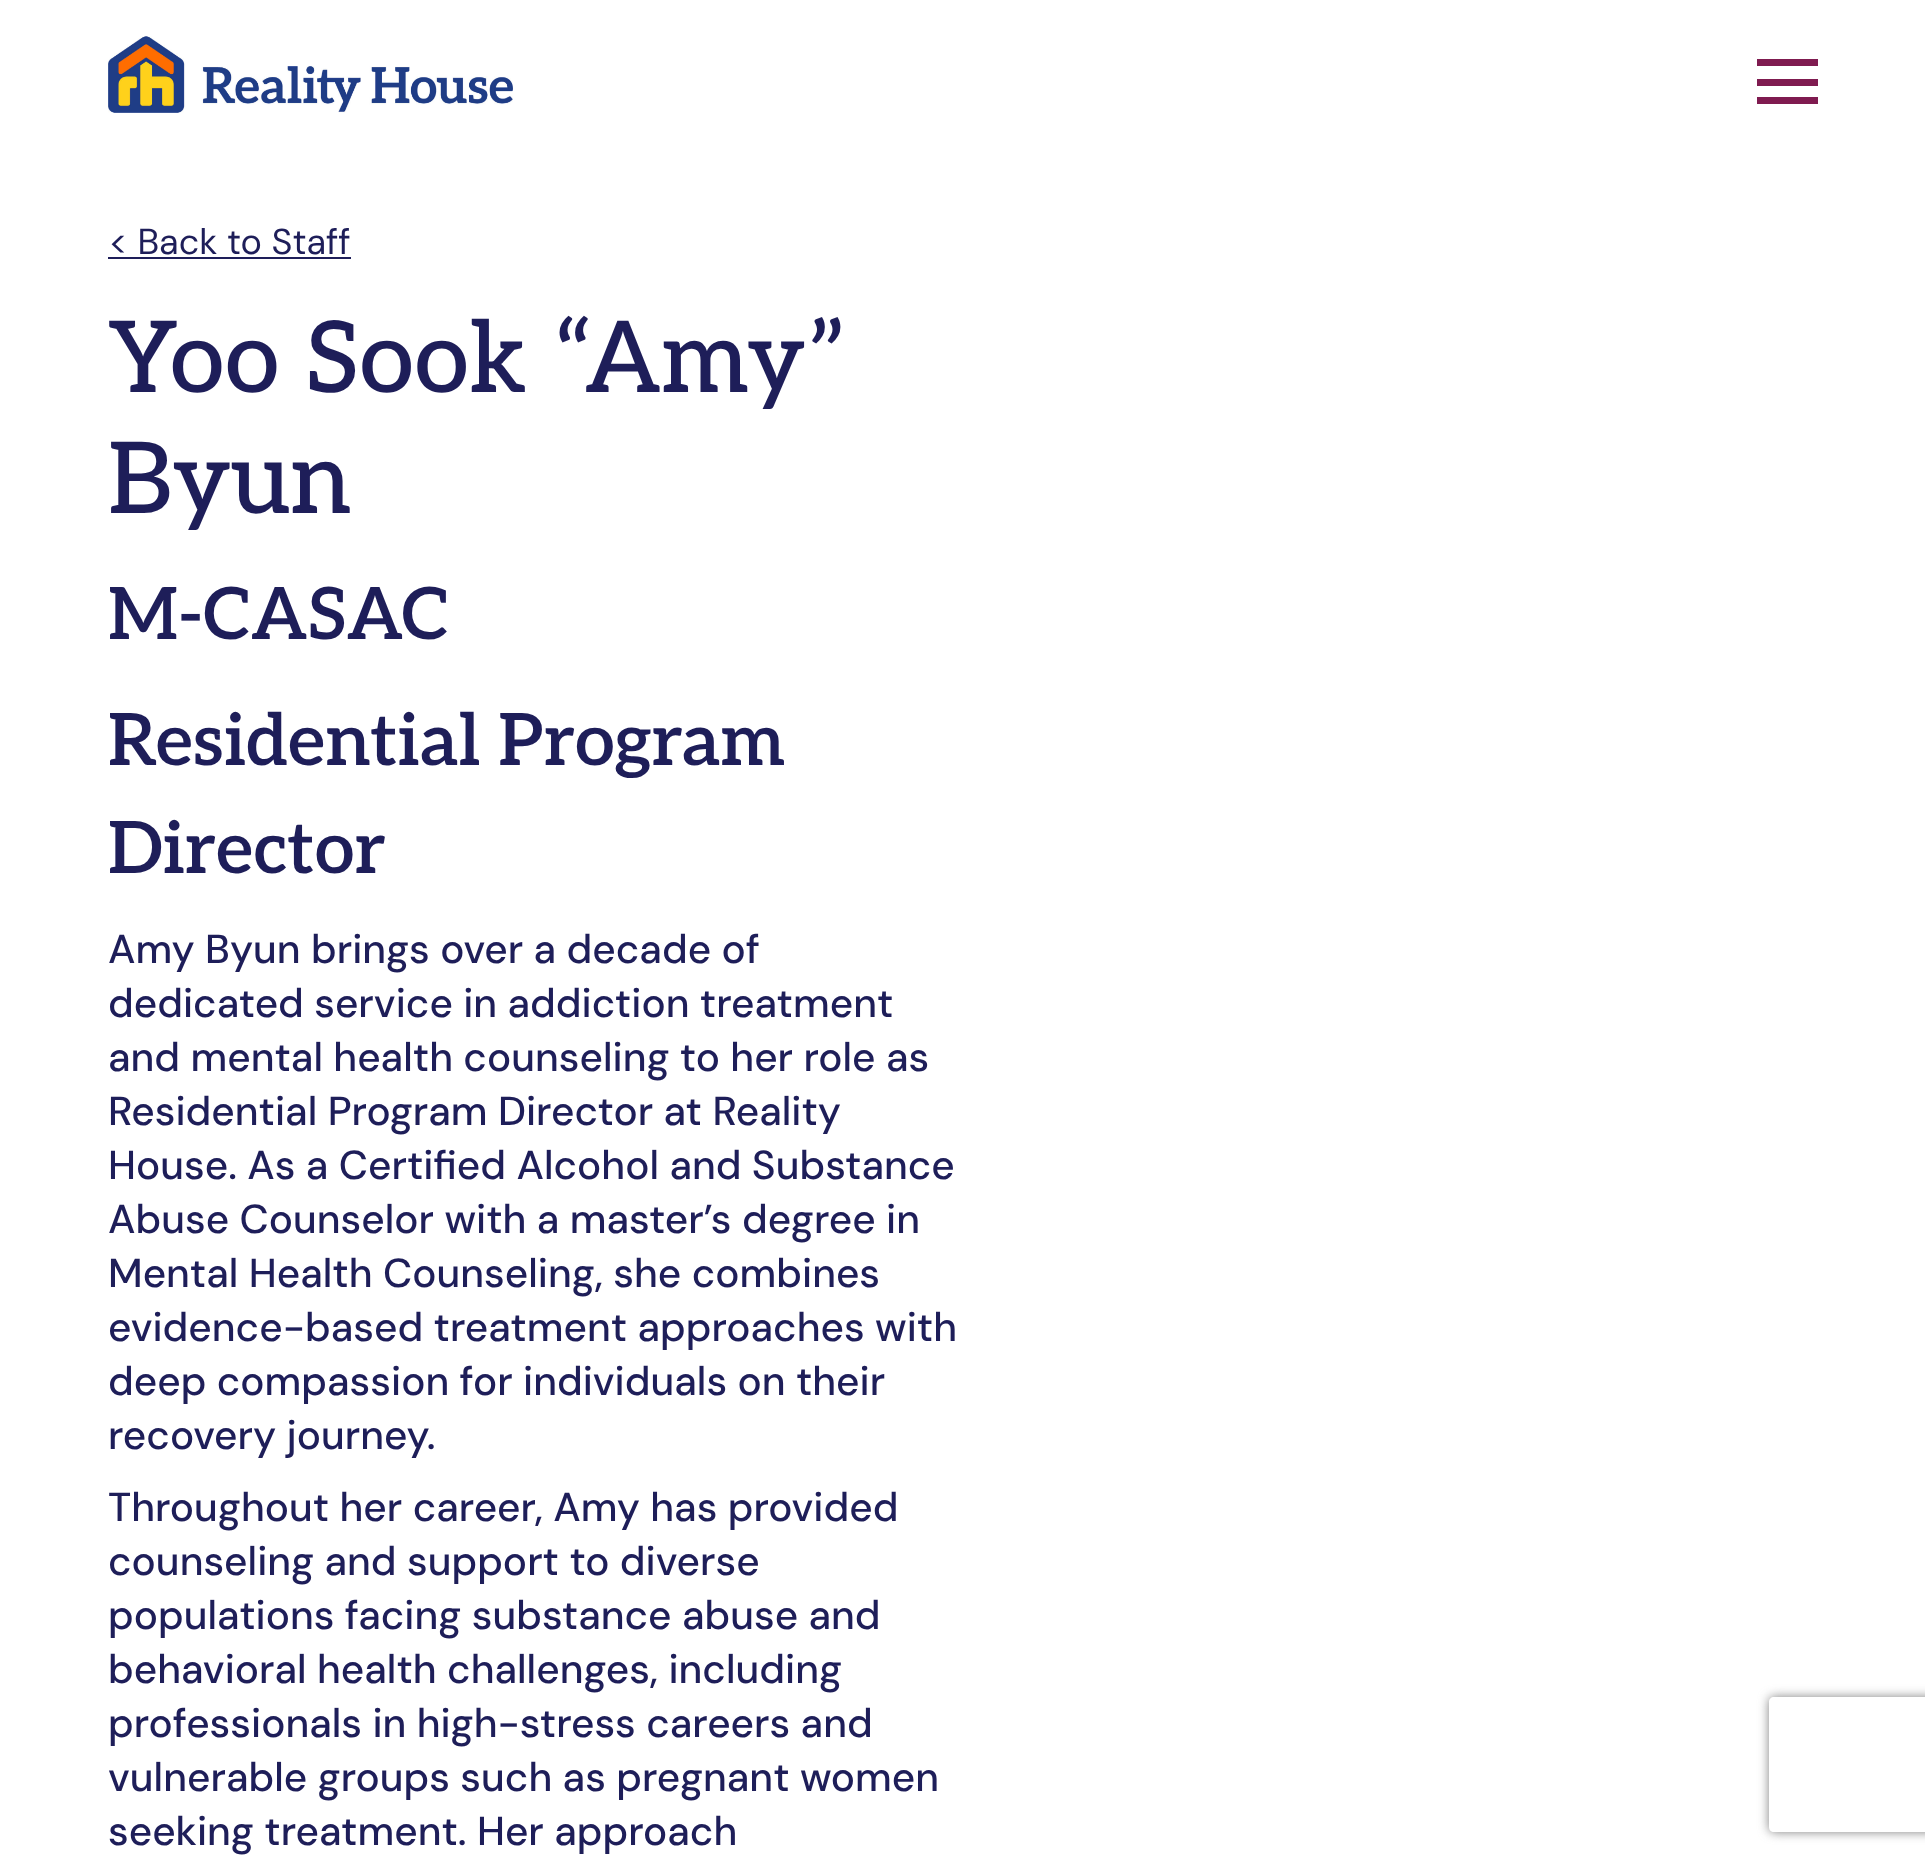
async function draw(canvas) {
  canvas.width = 1925;
  canvas.height = 1863;
  const ctx = canvas.getContext('2d');
  ctx.miterLimit = 4;
  ctx.fontKerning = 'normal';
  function label(s, x, y, font, color) {
    ctx.font = font;
    ctx.fillStyle = color;
    ctx.fillText(s, x, y);
  }
  function rect(x, y, w, h, color) {
    ctx.fillStyle = color;
    ctx.fillRect(x, y, w, h);
  }
  async function image(src, x, y, w, h) {
    const img = new Image();
    img.src = src;
    await img.decode();
    ctx.drawImage(img, x, y, w, h);
  }
  let path;

  rect(0, 0, 1925, 1863, '#fff');
  await image('assets/img1.png', 108, 36, 405, 77);
  rect(1757, 59, 61, 7, '#7f1b50');
  rect(1757, 79, 61, 7, '#7f1b50');
  rect(1757, 97, 61, 7, '#7f1b50');
  label('< Back to Staff', 108, 254, '36px DM Sans', '#1e1e59');
  rect(108, 257, 243, 2, '#1e1e59');
  label('Yoo Sook “Amy”', 108, 392, '500 99px Aleo', '#1e1e59');
  label('Byun', 108, 513, '500 99px Aleo', '#1e1e59');
  label('M-CASAC', 108, 639, '600 72px Aleo', '#1e1e59');
  label('Residential Program', 108, 765, '600 72px Aleo', '#1e1e59');
  label('Director', 108, 873, '600 72px Aleo', '#1e1e59');
  label('Amy Byun brings over a decade of', 108, 963, '500 40.5px DM Sans', '#1e1e59');
  label('dedicated service in addiction treatment', 108, 1017, '500 40.5px DM Sans', '#1e1e59');
  label('and mental health counseling to her role as', 108, 1071, '500 40.5px DM Sans', '#1e1e59');
  label('Residential Program Director at Reality', 108, 1125, '500 40.5px DM Sans', '#1e1e59');
  label('House. As a Certified Alcohol and Substance', 108, 1179, '500 40.5px DM Sans', '#1e1e59');
  label('Abuse Counselor with a master’s degree in', 108, 1233, '500 40.5px DM Sans', '#1e1e59');
  label('Mental Health Counseling, she combines', 108, 1287, '500 40.5px DM Sans', '#1e1e59');
  label('evidence-based treatment approaches with', 108, 1341, '500 40.5px DM Sans', '#1e1e59');
  label('deep compassion for individuals on their', 108, 1395, '500 40.5px DM Sans', '#1e1e59');
  label('recovery journey.', 108, 1449, '500 40.5px DM Sans', '#1e1e59');
  label('Throughout her career, Amy has provided', 108, 1521, '500 40.5px DM Sans', '#1e1e59');
  label('counseling and support to diverse', 108, 1575, '500 40.5px DM Sans', '#1e1e59');
  label('populations facing substance abuse and', 108, 1629, '500 40.5px DM Sans', '#1e1e59');
  label('behavioral health challenges, including', 108, 1683, '500 40.5px DM Sans', '#1e1e59');
  label('professionals in high-stress careers and', 108, 1737, '500 40.5px DM Sans', '#1e1e59');
  label('vulnerable groups such as pregnant women', 108, 1791, '500 40.5px DM Sans', '#1e1e59');
  label('seeking treatment. Her approach', 108, 1845, '500 40.5px DM Sans', '#1e1e59');
  ctx.save();
  path = new Path2D('M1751 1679H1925V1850H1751ZM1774 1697H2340C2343 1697 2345 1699 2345 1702V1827C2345 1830 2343 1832 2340 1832H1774C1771 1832 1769 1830 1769 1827V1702C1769 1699 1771 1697 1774 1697Z');
  ctx.clip(path, 'evenodd');
  ctx.fillStyle = '#808080';
  ctx.filter = 'blur(5.5px)';
  ctx.beginPath();
  ctx.roundRect(1769, 1697, 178, 135, 5);
  ctx.fill();
  ctx.filter = 'none';
  ctx.restore();
}

draw(document.querySelector('canvas'));
